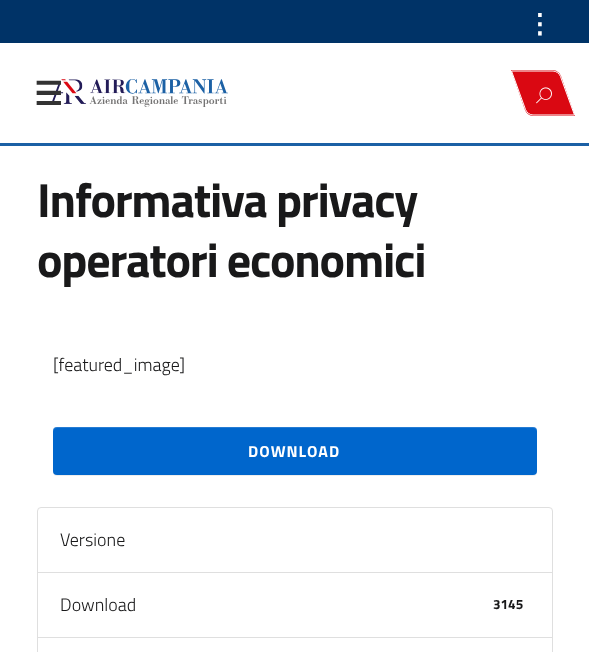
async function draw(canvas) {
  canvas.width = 589;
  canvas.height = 652;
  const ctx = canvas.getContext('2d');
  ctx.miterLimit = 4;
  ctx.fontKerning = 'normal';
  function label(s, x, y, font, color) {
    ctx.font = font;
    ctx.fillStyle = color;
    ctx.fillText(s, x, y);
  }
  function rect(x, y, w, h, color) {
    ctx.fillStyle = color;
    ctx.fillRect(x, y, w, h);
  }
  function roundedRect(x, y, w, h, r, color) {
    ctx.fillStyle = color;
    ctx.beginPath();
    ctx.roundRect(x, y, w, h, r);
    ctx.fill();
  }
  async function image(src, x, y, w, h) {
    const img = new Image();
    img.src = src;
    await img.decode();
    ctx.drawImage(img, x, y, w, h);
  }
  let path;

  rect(0, 0, 589, 652, '#fff');
  rect(0, 0, 589, 43, '#003367');
  label('⋮', 526, 33, 'bold 27px DejaVu Sans', '#fff');
  rect(0, 143, 589, 3, '#1b60a5');
  await image('assets/img1.png', 50, 79, 178, 28);
  label('☰', 34, 105, 'bold 32px DejaVu Sans', '#333');
  ctx.fillStyle = '#da0812';
  path = new Path2D('M511 70H553C556 70 560 73 561 76L575 116H533C530 116 526 113 525 110Z');
  ctx.fill(path);
  path = new Path2D('M511.5 71H553C556 71 559.5 73.5 560.5 76.5L574.5 115H533C530 115 526.5 112.5 525.5 109.5Z');
  ctx.strokeStyle = '#fff';
  ctx.stroke(path);
  await image('assets/img2.png', 536, 87, 16, 17);
  ctx.letterSpacing = '-1.25px';
  label('Informativa privacy', 37, 217, 'bold 48px Titillium Web', '#19191a');
  label('operatori economici', 37, 277, 'bold 48px Titillium Web', '#19191a');
  ctx.letterSpacing = '0px';
  label('[featured_image]', 53, 371, '300 18px Titillium Web', '#19191a');
  ctx.fillStyle = '#00000012';
  ctx.filter = 'blur(0.5px)';
  ctx.beginPath();
  ctx.roundRect(53, 428, 484, 48, 4);
  ctx.fill();
  ctx.filter = 'none';
  roundedRect(53, 427, 484, 48, 4, '#06c');
  ctx.fillStyle = '#ffffff26';
  path = new Path2D('M57 428H533C535 428 537 430 537 432C537 429 536 427 533 427H57C54 427 53 429 53 432C53 430 55 428 57 428Z');
  ctx.fill(path);
  ctx.letterSpacing = '1px';
  label('DOWNLOAD', 248, 457, 'bold 16px Titillium Web', '#fff');
  ctx.beginPath();
  ctx.roundRect(37.5, 507.5, 515, 65, [3.5, 3.5, 0, 0]);
  ctx.strokeStyle = '#dfdfdf';
  ctx.stroke();
  ctx.letterSpacing = '0px';
  label('Versione', 60, 546, '300 18px Titillium Web', '#19191a');
  ctx.strokeRect(37.5, 572.5, 515, 65);
  label('Download', 60, 611, '300 18px Titillium Web', '#19191a');
  label('3145', 493, 609, 'bold 13.5px Titillium Web', '#19191a');
  ctx.strokeRect(37.5, 637.5, 515, 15);
}

draw(document.querySelector('canvas'));
